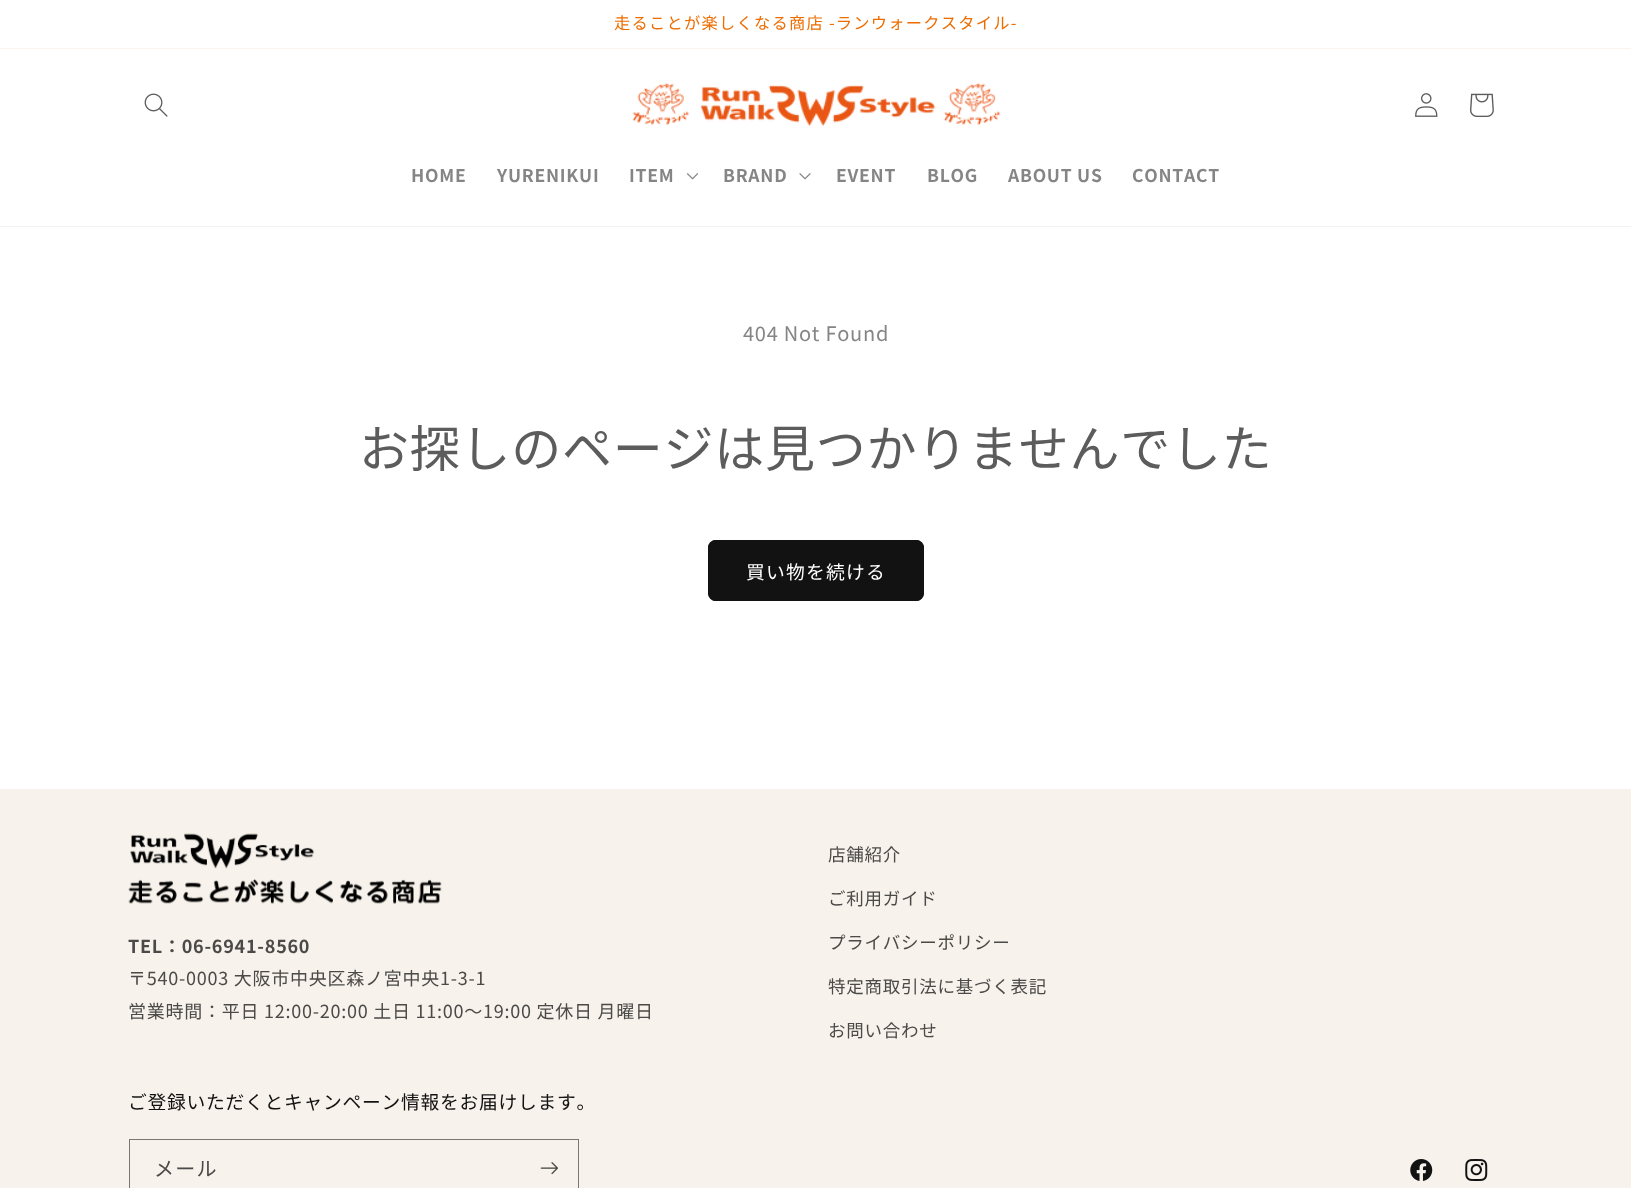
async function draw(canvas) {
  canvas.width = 1631;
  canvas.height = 1188;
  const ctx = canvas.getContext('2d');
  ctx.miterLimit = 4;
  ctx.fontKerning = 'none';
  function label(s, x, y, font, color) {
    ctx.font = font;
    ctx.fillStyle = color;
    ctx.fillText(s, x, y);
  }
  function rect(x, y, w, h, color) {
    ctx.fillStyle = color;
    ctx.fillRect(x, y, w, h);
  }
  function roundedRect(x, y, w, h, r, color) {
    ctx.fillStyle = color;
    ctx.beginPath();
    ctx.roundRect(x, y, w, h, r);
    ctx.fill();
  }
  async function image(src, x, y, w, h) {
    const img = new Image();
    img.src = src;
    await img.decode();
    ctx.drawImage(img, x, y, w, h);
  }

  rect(0, 0, 1631, 1188, '#fff');
  rect(0, 48, 1631, 1, '#fef3eb');
  ctx.letterSpacing = '1.25px';
  label('走ることが楽しくなる商店 -ランウォークスタイル-', 614, 29, '16.25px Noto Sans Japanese', '#ed6d00');
  rect(0, 226, 1631, 1, '#f2f2f2');
  await image('assets/img1.png', 144, 93, 24, 24);
  await image('assets/img2.png', 632, 83, 369, 44);
  await image('assets/img3.png', 1415, 93, 23, 24);
  await image('assets/img4.png', 1470, 93, 24, 24);
  ctx.letterSpacing = '0.75px';
  label('HOME', 411, 182, 'bold 17.5px Noto Sans Japanese', '#858585');
  label('YURENIKUI', 497, 182, 'bold 17.5px Noto Sans Japanese', '#858585');
  label('ITEM', 629, 182, 'bold 17.5px Noto Sans Japanese', '#858585');
  await image('assets/img5.png', 686, 173, 13, 7);
  label('BRAND', 723, 182, 'bold 17.5px Noto Sans Japanese', '#858585');
  await image('assets/img6.png', 799, 173, 12, 7);
  label('EVENT', 836, 182, 'bold 17.5px Noto Sans Japanese', '#858585');
  label('BLOG', 927, 182, 'bold 17.5px Noto Sans Japanese', '#858585');
  label('ABOUT US', 1008, 182, 'bold 17.5px Noto Sans Japanese', '#858585');
  label('CONTACT', 1132, 182, 'bold 17.5px Noto Sans Japanese', '#858585');
  label('404 Not Found', 743, 341, '20px Noto Sans Japanese', '#858585');
  label('お探しのページは見つかりませんでした', 359, 467, '50px Noto Sans Japanese', '#5c5c5c');
  roundedRect(708, 540, 216, 61, 8, '#121212');
  ctx.beginPath();
  ctx.roundRect(709.5, 541.5, 213, 58, 6.5);
  ctx.strokeStyle = '#121212';
  ctx.lineWidth = 3;
  ctx.stroke();
  ctx.letterSpacing = '1.25px';
  label('買い物を続ける', 746, 579, '18.75px Noto Sans Japanese', '#fff');
  rect(0, 789, 1631, 399, '#f7f2eb');
  await image('assets/img7.png', 128, 833, 314, 71);
  ctx.letterSpacing = '0.75px';
  label('TEL：06-6941-8560', 128, 953, 'bold 18px Noto Sans Japanese', '#4b4a48');
  label('〒540-0003 大阪市中央区森ノ宮中央1-3-1', 128, 985, '18px Noto Sans Japanese', '#4b4a48');
  label('営業時間：平日 12:00-20:00 土日 11:00〜19:00 定休日 月曜日', 128, 1018, '18px Noto Sans Japanese', '#4b4a48');
  label('店舗紹介', 828, 861, '17.5px Noto Sans Japanese', '#4b4a48');
  label('ご利用ガイド', 828, 905, '17.5px Noto Sans Japanese', '#4b4a48');
  label('プライバシーポリシー', 828, 949, '17.5px Noto Sans Japanese', '#4b4a48');
  label('特定商取引法に基づく表記', 828, 993, '17.5px Noto Sans Japanese', '#4b4a48');
  label('お問い合わせ', 828, 1037, '17.5px Noto Sans Japanese', '#4b4a48');
  label('ご登録いただくとキャンペーン情報をお届けします。', 128, 1109, '18.75px Noto Sans Japanese', '#121212');
  ctx.strokeStyle = '#797774';
  ctx.lineWidth = 1;
  ctx.strokeRect(129.5, 1139.5, 449, 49);
  ctx.letterSpacing = '1.25px';
  label('メール', 154, 1176, '20px Noto Sans Japanese', '#4b4a48');
  await image('assets/img8.png', 540, 1162, 18, 13);
  await image('assets/img9.png', 1410, 1159, 23, 22);
  await image('assets/img10.png', 1465, 1159, 23, 22);
}

draw(document.querySelector('canvas'));
